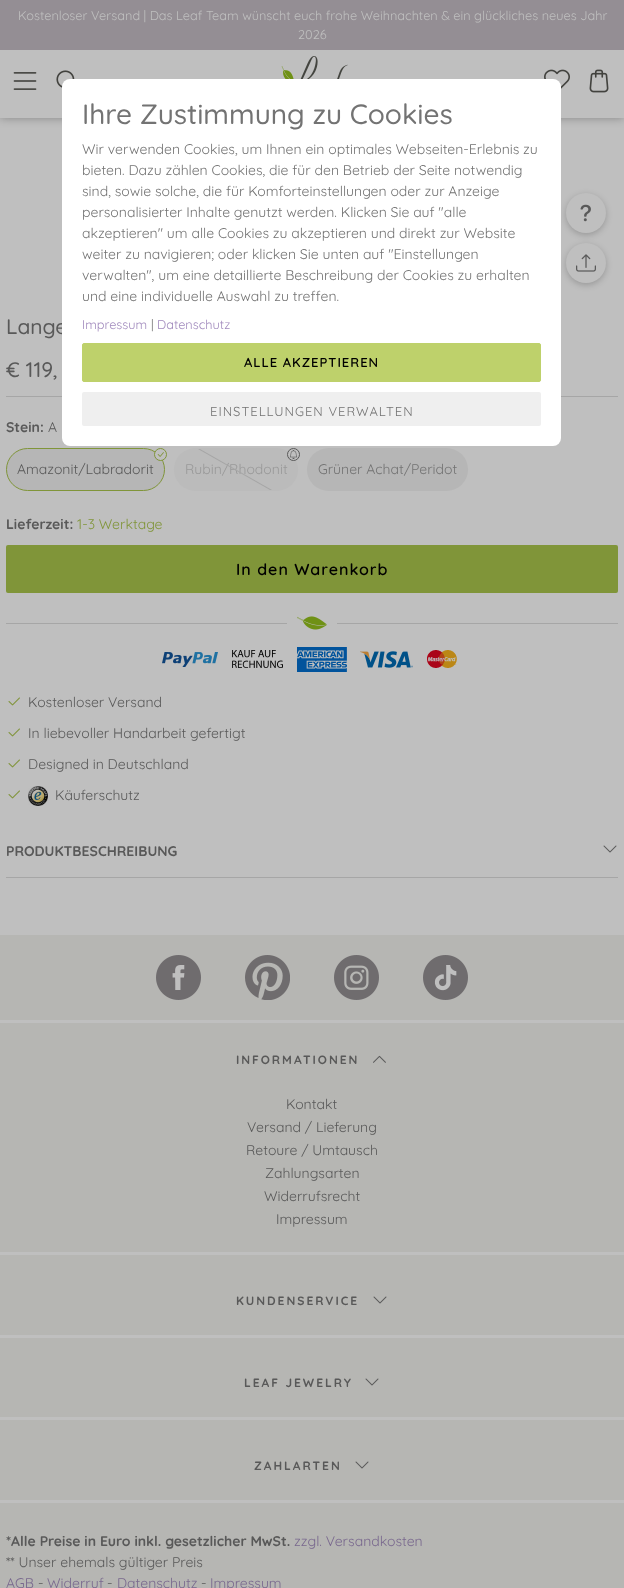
async function draw(canvas) {
  canvas.width = 624;
  canvas.height = 1588;
  const ctx = canvas.getContext('2d');
  ctx.miterLimit = 4;
  ctx.fontKerning = 'normal';
  function label(s, x, y, font, color) {
    ctx.font = font;
    ctx.fillStyle = color;
    ctx.fillText(s, x, y);
  }
  function rect(x, y, w, h, color) {
    ctx.fillStyle = color;
    ctx.fillRect(x, y, w, h);
  }
  function roundedRect(x, y, w, h, r, color) {
    ctx.fillStyle = color;
    ctx.beginPath();
    ctx.roundRect(x, y, w, h, r);
    ctx.fill();
  }
  async function image(src, x, y, w, h) {
    const img = new Image();
    img.src = src;
    await img.decode();
    ctx.drawImage(img, x, y, w, h);
  }
  let path;

  rect(0, 0, 624, 1588, '#bfbfbf');
  ctx.fillStyle = '#0000004d';
  ctx.filter = 'blur(5px)';
  ctx.beginPath();
  ctx.rect(0, 0, 624, 118);
  ctx.fill();
  ctx.filter = 'none';
  rect(0, 50, 624, 68, '#bfbfbf');
  rect(0, 0, 624, 50, '#948e94');
  label('Kostenloser Versand | Das Leaf Team wünscht euch frohe Weihnachten & ein glückliches neues Jahr', 18, 20, '300 12.75px "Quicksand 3"', '#bfbfbf');
  label('2026', 298, 39, '300 12.75px "Quicksand 3"', '#bfbfbf');
  await image('assets/img1.png', 13, 72, 24, 18);
  await image('assets/img2.png', 56, 70, 19, 18);
  await image('assets/img3.png', 281, 56, 67, 23);
  await image('assets/img4.png', 544, 69, 26, 20);
  await image('assets/img5.png', 589, 69, 20, 24);
  ctx.fillStyle = '#00000033';
  ctx.filter = 'blur(3px)';
  ctx.beginPath();
  ctx.roundRect(566, 195, 40, 40, 20);
  ctx.fill();
  ctx.filter = 'none';
  ctx.filter = 'blur(3px)';
  ctx.beginPath();
  ctx.roundRect(566, 245, 40, 40, 20);
  ctx.fill();
  ctx.filter = 'none';
  label('Lange', 6, 334, '300 21px "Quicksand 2"', '#595959');
  rect(6, 396, 612, 1, '#a6a6a6');
  roundedRect(62, 79, 499, 367, 8, '#fff');
  label('Ihre Zustimmung zu Cookies', 82, 124, '300 28px "Quicksand 2"', '#737373');
  label('Wir verwenden Cookies, um Ihnen ein optimales Webseiten-Erlebnis zu', 82, 154, '300 14px "Quicksand 3"', '#737373');
  label('bieten. Dazu zählen Cookies, die für den Betrieb der Seite notwendig', 82, 175, '300 14px "Quicksand 3"', '#737373');
  label('sind, sowie solche, die für Komforteinstellungen oder zur Anzeige', 82, 196, '300 14px "Quicksand 3"', '#737373');
  label('personalisierter Inhalte genutzt werden. Klicken Sie auf "alle', 82, 217, '300 14px "Quicksand 3"', '#737373');
  label('akzeptieren" um alle Cookies zu akzeptieren und direkt zur Website', 82, 238, '300 14px "Quicksand 3"', '#737373');
  label('weiter zu navigieren; oder klicken Sie unten auf "Einstellungen', 82, 259, '300 14px "Quicksand 3"', '#737373');
  label('verwalten", um eine detaillierte Beschreibung der Cookies zu erhalten', 82, 280, '300 14px "Quicksand 3"', '#737373');
  label('und eine individuelle Auswahl zu treffen.', 82, 301, '300 14px "Quicksand 3"', '#737373');
  label('Impressum', 82, 329, '300 12.75px "Quicksand 3"', '#a18abd');
  label('|', 151, 329, '300 12.75px "Quicksand 3"', '#737373');
  label('Datenschutz', 157, 329, '300 12.75px "Quicksand 3"', '#a18abd');
  ctx.fillStyle = '#bed16b';
  ctx.beginPath();
  ctx.roundRect(82.5, 343.5, 458, 38, 1.5);
  ctx.fill();
  ctx.strokeStyle = '#bed16b';
  ctx.stroke();
  ctx.letterSpacing = '1px';
  label('ALLE AKZEPTIEREN', 244, 367, '600 13px Quicksand', '#000');
  roundedRect(82, 392, 459, 34, 2, '#efefef');
  label('EINSTELLUNGEN VERWALTEN', 210, 416, '300 13px "Quicksand 3"', '#737373');
  ctx.fillStyle = '#bfbfbf';
  ctx.beginPath();
  ctx.arc(586, 213, 20, 0, 2 * Math.PI);
  ctx.fill();
  await image('assets/img6.png', 580, 204, 11, 18);
  ctx.beginPath();
  ctx.arc(586, 263, 20, 0, 2 * Math.PI);
  ctx.fill();
  await image('assets/img7.png', 576, 254, 20, 18);
  ctx.letterSpacing = '0px';
  label('€ 119,', 6, 377, '300 21px "Quicksand 2"', '#595959');
  label('Stein:', 6, 432, '300 14px Quicksand', '#595959');
  label('A', 48, 432, '300 14px "Quicksand 3"', '#595959');
  ctx.fillStyle = '#b6b6b6';
  ctx.beginPath();
  ctx.roundRect(6.5, 448.5, 158, 42, 21);
  ctx.fill();
  ctx.strokeStyle = '#809539';
  ctx.stroke();
  ctx.fillStyle = '#bfbfbf';
  ctx.beginPath();
  ctx.arc(160.5, 454.5, 6, 0, 2 * Math.PI);
  ctx.fill();
  ctx.stroke();
  await image('assets/img8.png', 157, 452, 7, 5);
  label('Amazonit/Labradorit', 17, 474, '300 14px "Quicksand 3"', '#595959');
  roundedRect(174, 448, 124, 43, 21.5, '#bbb');
  ctx.fillStyle = '#bfbfbf';
  ctx.beginPath();
  ctx.arc(293.5, 454.5, 6, 0, 2 * Math.PI);
  ctx.fill();
  ctx.strokeStyle = '#595959';
  ctx.stroke();
  await image('assets/img9.png', 289, 450, 9, 9);
  label('Rubin/Rhodonit', 185, 474, '300 14px "Quicksand 3"', '#999');
  ctx.fillStyle = '#a6a6a6';
  path = new Path2D('M270 490L198 449H200L272 490Z');
  ctx.fill(path);
  roundedRect(307, 448, 161, 43, 21.5, '#b6b6b6');
  label('Grüner Achat/Peridot', 318, 474, '300 14px "Quicksand 3"', '#737373');
  label('Lieferzeit:', 6, 529, '300 14px Quicksand', '#595959');
  label('1-3 Werktage', 77, 529, '300 14px "Quicksand 3"', '#809539');
  roundedRect(6, 545, 612, 48, 2, '#809539');
  ctx.letterSpacing = '1px';
  label('In den Warenkorb', 236, 575, '600 16px Quicksand', '#000');
  rect(6, 623, 612, 1, '#a6a6a6');
  rect(287, 623, 50, 1, '#bfbfbf');
  await image('assets/img10.png', 297, 616, 30, 14);
  await image('assets/img11.png', 162, 652, 56, 15);
  await image('assets/img12.png', 232, 650, 51, 18);
  await image('assets/img13.png', 297, 647, 50, 25);
  await image('assets/img14.png', 360, 651, 53, 17);
  await image('assets/img15.png', 427, 650, 30, 18);
  await image('assets/img16.png', 8, 697, 12, 9);
  ctx.letterSpacing = '0px';
  label('Kostenloser Versand', 28, 707, '300 14px "Quicksand 3"', '#595959');
  await image('assets/img16.png', 8, 728, 12, 9);
  label('In liebevoller Handarbeit gefertigt', 28, 738, '300 14px "Quicksand 3"', '#595959');
  await image('assets/img16.png', 8, 759, 12, 9);
  label('Designed in Deutschland', 28, 769, '300 14px "Quicksand 3"', '#595959');
  await image('assets/img16.png', 8, 790, 12, 9);
  await image('assets/img17.png', 28, 786, 20, 20);
  label('Käuferschutz', 55, 800, '300 14px "Quicksand 3"', '#595959');
  rect(6, 877, 612, 1, '#a6a6a6');
  label('PRODUKTBESCHREIBUNG', 6, 856, '300 14px Quicksand', '#595959');
  await image('assets/img18.png', 603, 845, 14, 8);
  rect(0, 935, 624, 85, '#b6b6b3');
  await image('assets/img19.png', 156, 955, 45, 45);
  await image('assets/img20.png', 245, 955, 45, 45);
  await image('assets/img21.png', 334, 955, 45, 45);
  await image('assets/img22.png', 423, 955, 45, 45);
  rect(0, 1023, 624, 565, '#b6b6b3');
  rect(0, 1252, 624, 3, '#bfbfbf');
  ctx.letterSpacing = '2px';
  label('INFORMATIONEN', 236, 1064, '300 12px Quicksand', '#595959');
  await image('assets/img23.png', 373, 1055, 13, 8);
  ctx.letterSpacing = '0px';
  label('Kontakt', 286, 1109, '300 14px "Quicksand 3"', '#595959');
  label('Versand / Lieferung', 247, 1132, '300 14px "Quicksand 3"', '#595959');
  label('Retoure / Umtausch', 246, 1155, '300 14px "Quicksand 3"', '#595959');
  label('Zahlungsarten', 265, 1178, '300 14px "Quicksand 3"', '#595959');
  label('Widerrufsrecht', 264, 1201, '300 14px "Quicksand 3"', '#595959');
  label('Impressum', 276, 1224, '300 14px "Quicksand 3"', '#595959');
  rect(0, 1335, 624, 3, '#bfbfbf');
  ctx.letterSpacing = '2px';
  label('KUNDENSERVICE', 236, 1305, '300 12px Quicksand', '#595959');
  await image('assets/img24.png', 373, 1296, 14, 8);
  rect(0, 1417, 624, 3, '#bfbfbf');
  label('LEAF JEWELRY', 244, 1387, '300 12px Quicksand', '#595959');
  await image('assets/img24.png', 365, 1378, 14, 8);
  rect(0, 1500, 624, 3, '#bfbfbf');
  label('ZAHLARTEN', 254, 1470, '300 12px Quicksand', '#595959');
  await image('assets/img24.png', 355, 1461, 14, 8);
  ctx.letterSpacing = '0px';
  label('*Alle Preise in Euro inkl. gesetzlicher MwSt.', 6, 1546, '300 14px Quicksand', '#595959');
  label('zzgl. Versandkosten', 294, 1546, '300 14px "Quicksand 3"', '#79688e');
  label('** Unser ehemals gültiger Preis', 6, 1567, '300 14px "Quicksand 3"', '#595959');
  label('AGB', 6, 1588, '300 14px "Quicksand 3"', '#79688e');
  label('-', 38, 1588, '300 14px "Quicksand 3"', '#595959');
  label('Widerruf', 47, 1588, '300 14px "Quicksand 3"', '#79688e');
  label('-', 107, 1588, '300 14px "Quicksand 3"', '#595959');
  label('Datenschutz', 117, 1588, '300 14px "Quicksand 3"', '#79688e');
  label('-', 201, 1588, '300 14px "Quicksand 3"', '#595959');
  label('Impressum', 210, 1588, '300 14px "Quicksand 3"', '#79688e');
}

draw(document.querySelector('canvas'));
